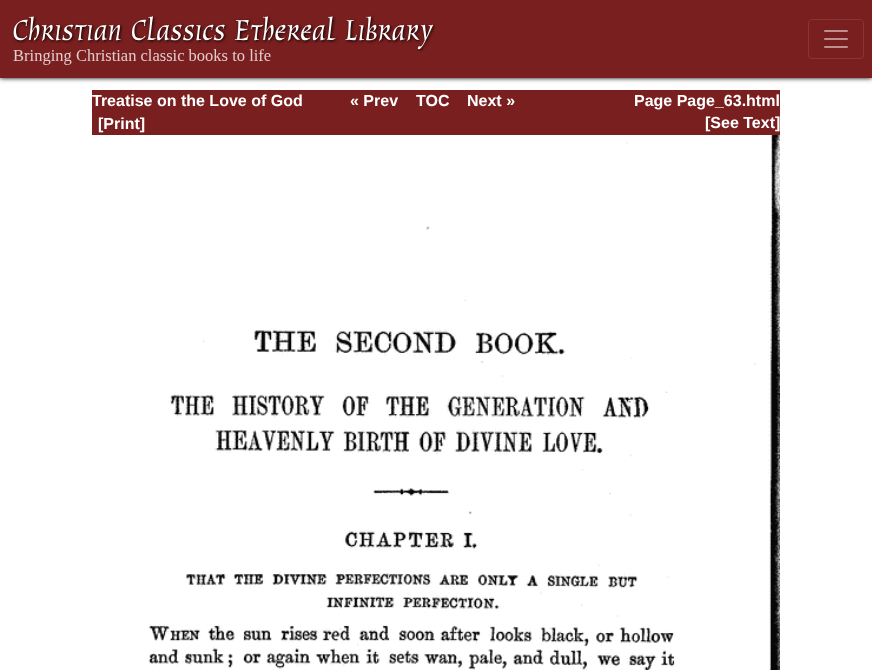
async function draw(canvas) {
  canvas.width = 872;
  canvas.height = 670;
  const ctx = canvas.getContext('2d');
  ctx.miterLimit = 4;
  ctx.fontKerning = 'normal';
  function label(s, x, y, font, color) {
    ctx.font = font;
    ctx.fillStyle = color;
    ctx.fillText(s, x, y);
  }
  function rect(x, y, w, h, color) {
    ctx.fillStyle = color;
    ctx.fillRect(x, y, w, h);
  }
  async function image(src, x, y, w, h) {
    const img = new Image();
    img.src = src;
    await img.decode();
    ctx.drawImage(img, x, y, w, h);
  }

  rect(0, 0, 872, 670, '#fff');
  ctx.fillStyle = '#000';
  ctx.filter = 'blur(2.5px)';
  ctx.beginPath();
  ctx.rect(0, 0, 872, 78);
  ctx.fill();
  ctx.filter = 'none';
  rect(0, 0, 872, 78, '#7a1f1f');
  await image('assets/img1.png', 12, 15, 424, 50);
  ctx.beginPath();
  ctx.roundRect(808.5, 19.5, 55, 39, 3.5);
  ctx.strokeStyle = '#873535';
  ctx.stroke();
  await image('assets/img2.png', 824, 30, 24, 18);
  rect(92, 90, 688, 45, '#7a1f1f');
  label('Treatise on the Love of God', 92, 106, 'bold 16px Liberation Sans', '#fff');
  label('« Prev', 350, 106, 'bold 16px Liberation Sans', '#fff');
  label('TOC', 416, 106, 'bold 16px Liberation Sans', '#fff');
  label('Next »', 467, 106, 'bold 16px Liberation Sans', '#fff');
  label('Page Page_63.html', 634, 106, 'bold 16px Liberation Sans', '#fff');
  label('[Print]', 98, 129, 'bold 16px Liberation Sans', '#fff');
  label('[See Text]', 705, 128, 'bold 16px Liberation Sans', '#fff');
  await image('assets/img3.png', 148, 135, 632, 535);
}

draw(document.querySelector('canvas'));
